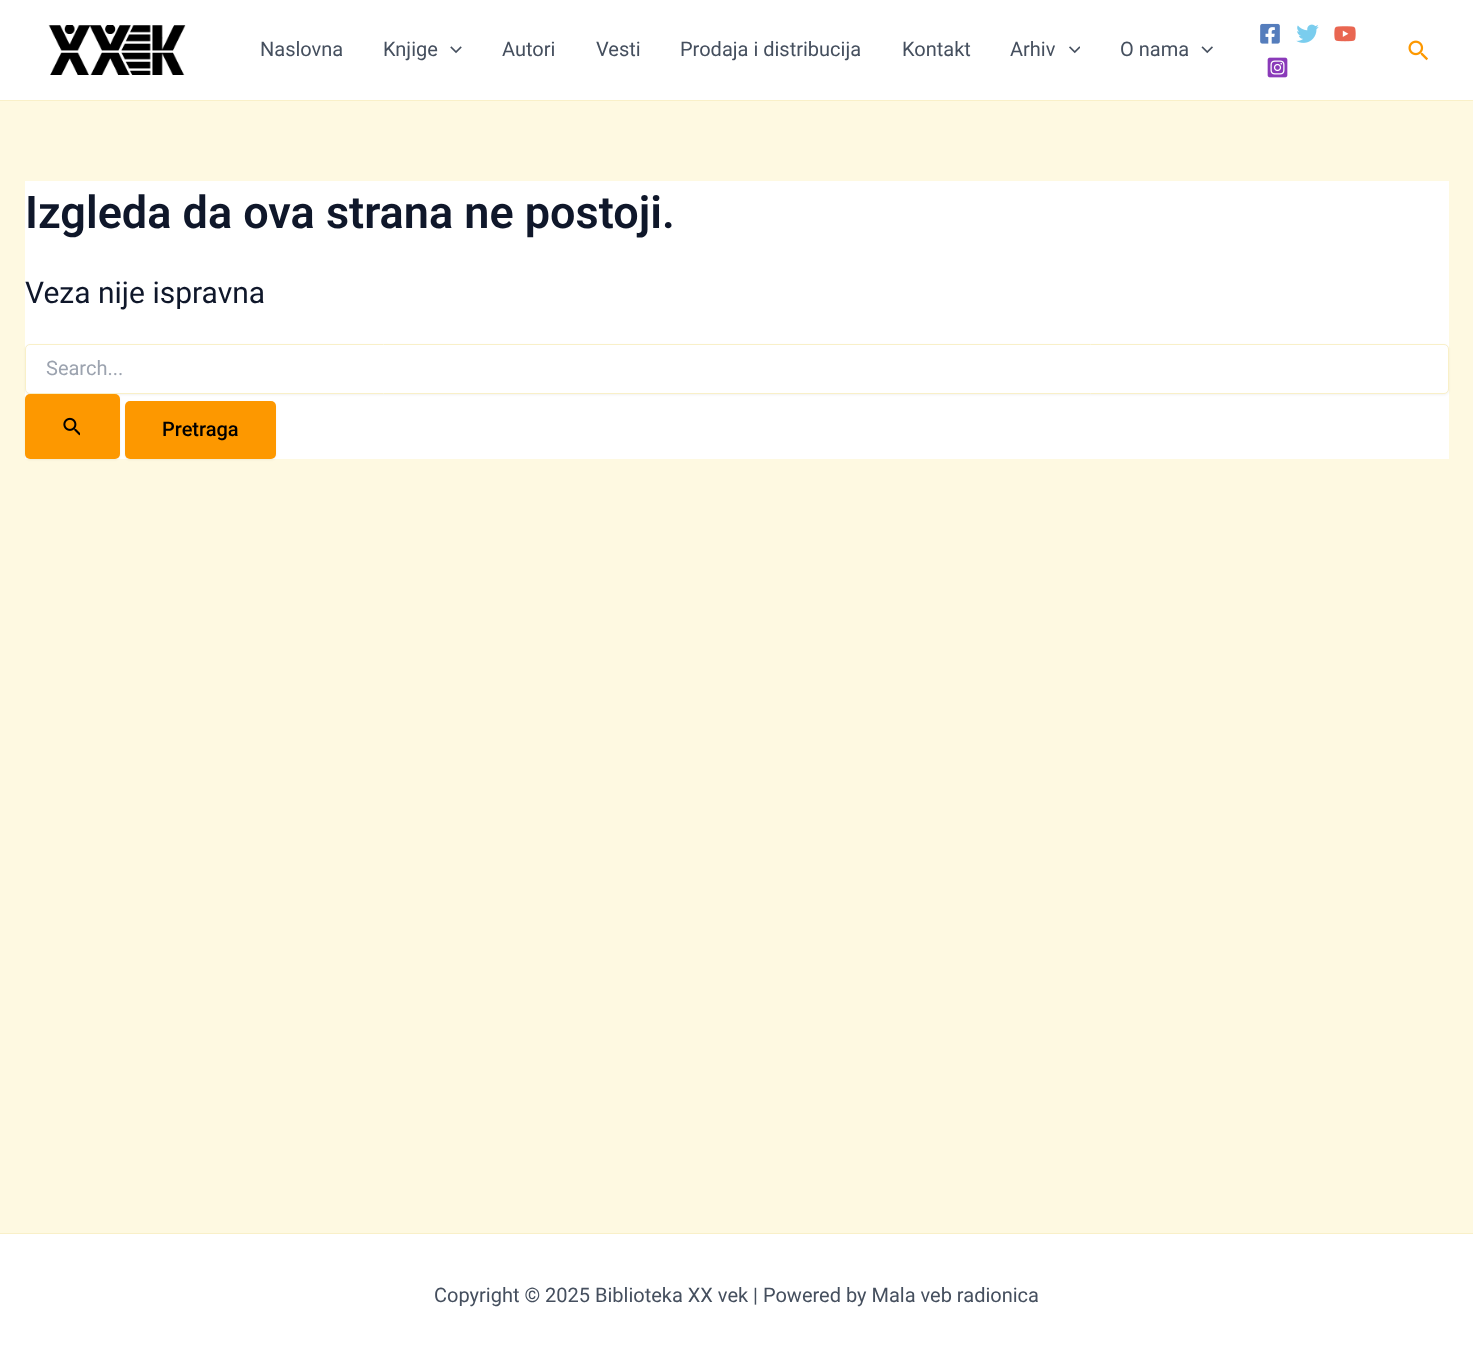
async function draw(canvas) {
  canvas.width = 1473;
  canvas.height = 1358;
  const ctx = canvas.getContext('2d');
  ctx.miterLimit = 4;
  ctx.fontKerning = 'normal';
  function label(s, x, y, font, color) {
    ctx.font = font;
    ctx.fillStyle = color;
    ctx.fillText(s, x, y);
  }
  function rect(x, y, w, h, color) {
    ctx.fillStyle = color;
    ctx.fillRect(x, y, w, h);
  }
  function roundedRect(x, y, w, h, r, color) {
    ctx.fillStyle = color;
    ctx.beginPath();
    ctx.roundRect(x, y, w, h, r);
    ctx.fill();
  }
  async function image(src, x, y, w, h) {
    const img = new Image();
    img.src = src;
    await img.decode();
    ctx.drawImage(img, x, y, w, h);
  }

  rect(0, 0, 1473, 1358, '#fef9e1');
  rect(0, 0, 1473, 100, '#fff');
  rect(0, 100, 1473, 1, '#f9f0c8');
  await image('assets/img1.png', 48, 25, 138, 50);
  label('Naslovna', 260, 56, '20px Roboto', '#454f5e');
  label('Knjige', 383, 56, '20px Roboto', '#454f5e');
  await image('assets/img2.png', 450, 46, 12, 8);
  label('Autori', 502, 56, '20px Roboto', '#454f5e');
  label('Vesti', 596, 56, '20px Roboto', '#454f5e');
  label('Prodaja i distribucija', 680, 56, '20px Roboto', '#454f5e');
  label('Kontakt', 902, 56, '20px Roboto', '#454f5e');
  label('Arhiv', 1010, 56, '20px Roboto', '#454f5e');
  await image('assets/img3.png', 1069, 46, 11, 8);
  label('O nama', 1120, 56, '20px Roboto', '#454f5e');
  await image('assets/img4.png', 1201, 46, 12, 8);
  await image('assets/img5.png', 1260, 23, 20, 21);
  await image('assets/img6.png', 1296, 24, 23, 19);
  await image('assets/img7.png', 1334, 26, 22, 16);
  await image('assets/img8.png', 1267, 57, 21, 21);
  await image('assets/img9.png', 1408, 40, 20, 21);
  rect(25, 181, 1424, 278, '#fff');
  label('Izgleda da ova strana ne postoji.', 25, 228, '600 45px Roboto', '#0f172a');
  label('Veza nije ispravna', 25, 303, '30px Roboto', '#0f172a');
  ctx.fillStyle = '#0000000d';
  ctx.filter = 'blur(1px)';
  ctx.beginPath();
  ctx.roundRect(25, 345, 1424, 50, 5);
  ctx.fill();
  ctx.filter = 'none';
  ctx.fillStyle = '#fff';
  ctx.beginPath();
  ctx.roundRect(25.5, 344.5, 1423, 49, 4.5);
  ctx.fill();
  ctx.strokeStyle = '#f9f0c8';
  ctx.stroke();
  label('Search...', 46, 375, '20px Roboto', '#9ca3af');
  ctx.fillStyle = '#0000000d';
  ctx.filter = 'blur(1px)';
  ctx.beginPath();
  ctx.roundRect(25, 395, 95, 65, 5);
  ctx.fill();
  ctx.filter = 'none';
  roundedRect(25, 394, 95, 65, 5, '#fd9800');
  await image('assets/img10.png', 63, 417, 17, 19);
  ctx.fillStyle = '#0000000d';
  ctx.filter = 'blur(1px)';
  ctx.beginPath();
  ctx.roundRect(125, 403, 151, 57, 5);
  ctx.fill();
  ctx.filter = 'none';
  roundedRect(125, 401, 151, 58, 5, '#fd9800');
  label('Pretraga', 162, 436, '500 20px Roboto', '#000');
  rect(0, 1234, 1473, 124, '#fff');
  rect(0, 1233, 1473, 1, '#f9f0c8');
  label('Copyright © 2025 Biblioteka XX vek | Powered by Mala veb radionica', 434, 1302, '20px Roboto', '#454f5e');
}

draw(document.querySelector('canvas'));
